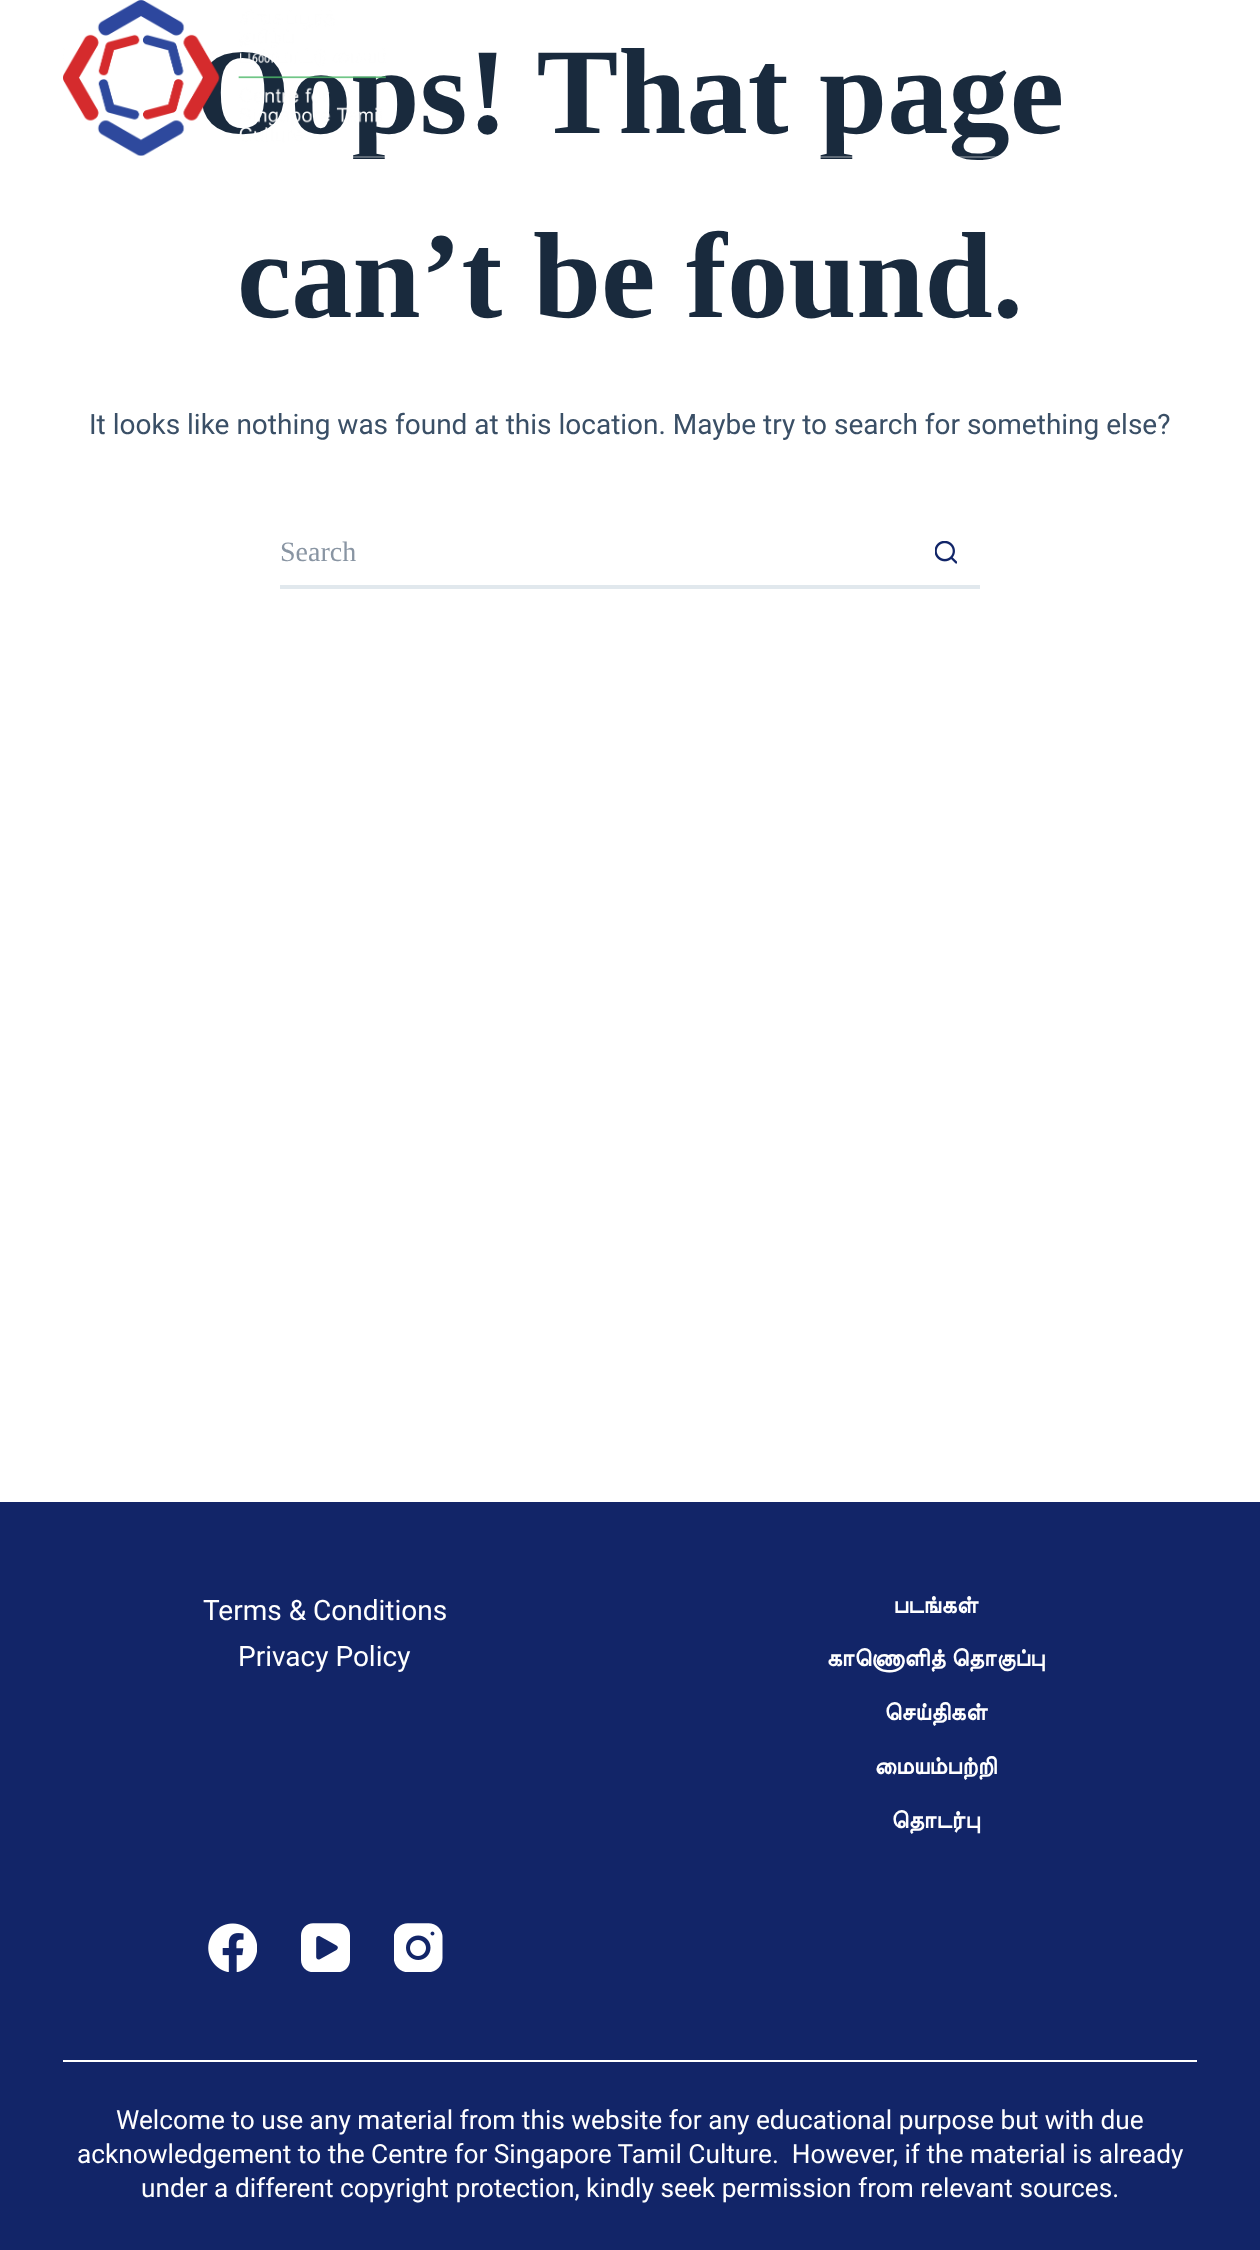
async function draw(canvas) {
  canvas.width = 1260;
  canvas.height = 2250;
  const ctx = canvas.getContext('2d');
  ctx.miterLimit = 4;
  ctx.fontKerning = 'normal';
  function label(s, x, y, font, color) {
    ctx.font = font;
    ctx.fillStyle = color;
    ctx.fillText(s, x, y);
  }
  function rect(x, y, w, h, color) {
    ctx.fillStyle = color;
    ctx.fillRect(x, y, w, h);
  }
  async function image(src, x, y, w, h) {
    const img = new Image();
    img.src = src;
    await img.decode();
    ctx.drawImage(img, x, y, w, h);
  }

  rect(0, 0, 1260, 2250, '#fff');
  label('Oops! That page', 195, 133, 'bold 122.5px Liberation Serif', '#192a3d');
  rect(353, 156, 645, 2, '#ffffff4d');
  await image('assets/img1.png', 63, 0, 323, 156);
  label('can’t be found.', 237, 317, 'bold 122.5px Liberation Serif', '#192a3d');
  label('It looks like nothing was found at this location. Maybe try to search for something else?', 89, 434, '28px Roboto', '#3a4f66');
  rect(280, 585, 700, 4, '#e1e8ed');
  label('Search', 280, 561, '28px Liberation Serif', '#8995a3');
  await image('assets/img2.png', 935, 541, 22, 23);
  rect(0, 1502, 1260, 748, '#122568');
  label('Terms & Conditions', 203, 1620, '28px Roboto', '#fff');
  label('Privacy Policy', 238, 1666, '28px Roboto', '#fff');
  label('படங்கள்', 893, 1613, 'bold 24.5px FreeSans', '#fff');
  label('காணொளித் தொகுப்பு', 826, 1666, 'bold 24.5px FreeSans', '#fff');
  label('செய்திகள்', 884, 1720, 'bold 24.5px FreeSans', '#fff');
  label('மையம்பற்றி', 874, 1774, 'bold 24.5px FreeSans', '#fff');
  label('தொடர்பு', 891, 1828, 'bold 24.5px FreeSans', '#fff');
  await image('assets/img3.png', 208, 1923, 49, 49);
  await image('assets/img4.png', 301, 1923, 49, 49);
  await image('assets/img5.png', 394, 1923, 49, 49);
  rect(63, 2060, 1134, 2, '#fff');
  label('Welcome to use any material from this website for any educational purpose but with due', 116, 2129, '26.25px Roboto', '#fff');
  label('acknowledgement to the Centre for Singapore Tamil Culture.  However, if the material is already', 77, 2163, '26.25px Roboto', '#fff');
  label('under a different copyright protection, kindly seek permission from relevant sources.', 141, 2197, '26.25px Roboto', '#fff');
}

draw(document.querySelector('canvas'));
